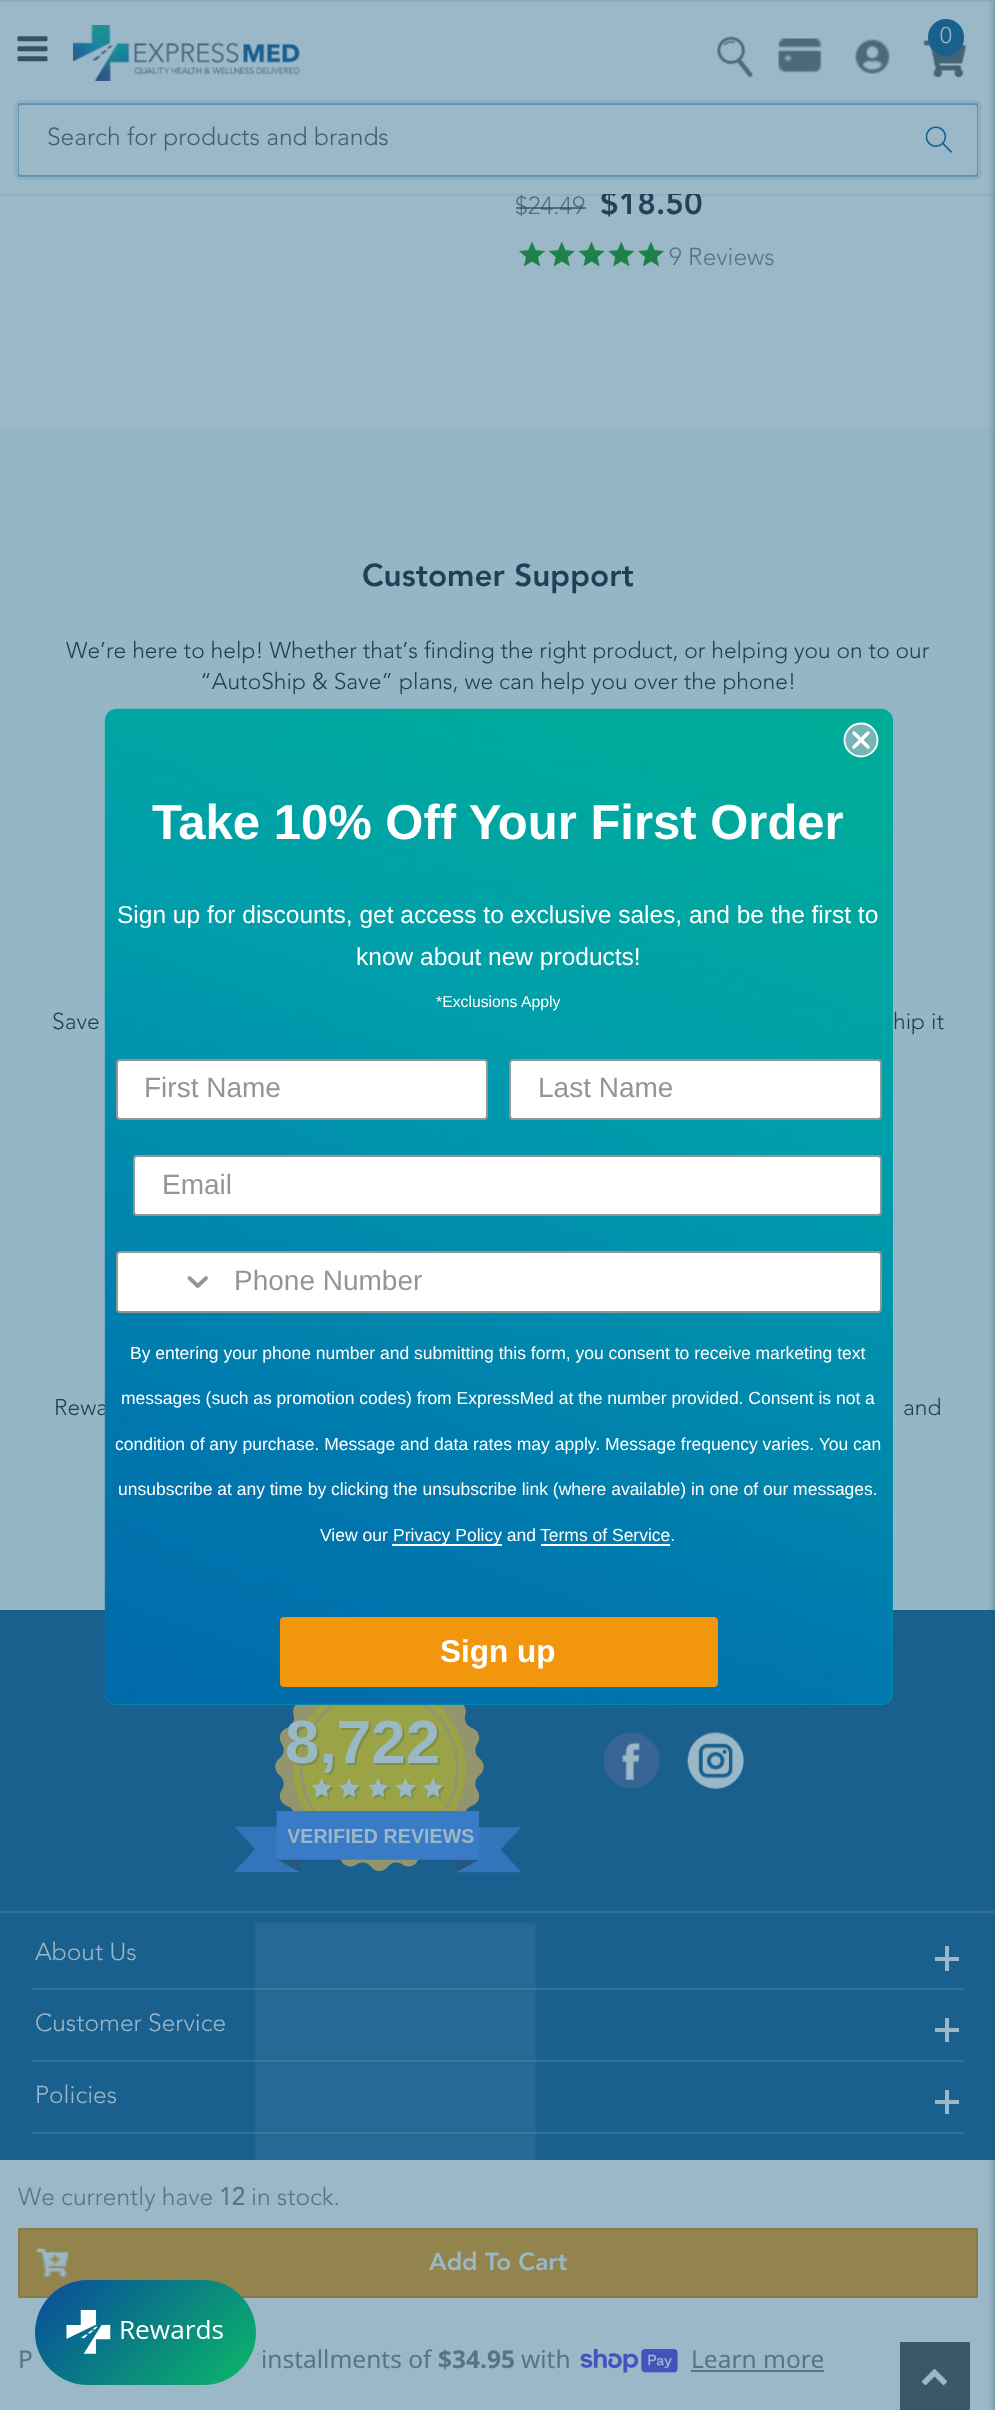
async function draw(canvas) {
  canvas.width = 995;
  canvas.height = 2410;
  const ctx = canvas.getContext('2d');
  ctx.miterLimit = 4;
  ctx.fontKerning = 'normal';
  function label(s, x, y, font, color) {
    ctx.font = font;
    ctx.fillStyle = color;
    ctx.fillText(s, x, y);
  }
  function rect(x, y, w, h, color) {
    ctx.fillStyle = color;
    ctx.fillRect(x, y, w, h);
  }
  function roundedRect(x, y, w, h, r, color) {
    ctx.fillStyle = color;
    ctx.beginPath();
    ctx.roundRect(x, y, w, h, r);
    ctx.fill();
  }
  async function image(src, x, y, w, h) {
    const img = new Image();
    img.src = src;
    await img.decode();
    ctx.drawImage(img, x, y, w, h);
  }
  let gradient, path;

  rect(0, 0, 995, 2410, '#9ab8c7');
  ctx.fillStyle = '#1a39470f';
  path = new Path2D('M0 194V196H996V2V194Z');
  ctx.fill(path);
  label('$18.50', 600, 214, '900 31.5px Avenir', '#234258');
  rect(603, 189, 96, 5, '#9ab8c7');
  rect(0, 0, 995, 2, '#8eacbb');
  await image('assets/img1.png', 17, 36, 31, 26);
  await image('assets/img2.png', 73, 25, 227, 56);
  await image('assets/img3.png', 717, 36, 36, 42);
  await image('assets/img4.png', 778, 38, 44, 35);
  await image('assets/img5.png', 855, 38, 35, 36);
  await image('assets/img6.png', 923, 39, 43, 39);
  ctx.fillStyle = '#1a608f';
  ctx.beginPath();
  ctx.roundRect(930, 21, 32, 33, 16);
  ctx.fill();
  ctx.strokeStyle = '#1a608f';
  ctx.lineWidth = 4;
  ctx.stroke();
  label('0', 940, 43, '300 22.75px Avenir', '#9ab8c7');
  ctx.beginPath();
  ctx.roundRect(19, 104, 958, 72, 1);
  ctx.strokeStyle = '#6a97b2';
  ctx.lineWidth = 2;
  ctx.stroke();
  roundedRect(19, 105, 958, 70, 2, '#9ab8c7');
  ctx.beginPath();
  ctx.roundRect(16.5, 102.5, 963, 75, 4.5);
  ctx.strokeStyle = '#2366931a';
  ctx.lineWidth = 5;
  ctx.stroke();
  label('Search for products and brands', 47, 145, '300 24.5px Avenir', '#3c6074');
  await image('assets/img7.png', 925, 126, 27, 27);
  rect(0, 427, 995, 1183, '#94b6c5');
  rect(0, 1610, 995, 550, '#1a608f');
  rect(0, 1911, 995, 2, '#34719a');
  ctx.fillStyle = '#335260bf';
  ctx.filter = 'blur(4.5px)';
  ctx.beginPath();
  ctx.rect(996, 0, 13, 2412);
  ctx.fill();
  ctx.filter = 'none';
  label('$24.49', 515, 214, '300 24.5px Avenir', '#4f7184');
  rect(516, 207, 70, 2, '#1d425899');
  await image('assets/img8.png', 519, 241, 26, 26);
  await image('assets/img9.png', 548, 241, 27, 26);
  await image('assets/img10.png', 578, 241, 27, 26);
  await image('assets/img11.png', 608, 241, 27, 26);
  await image('assets/img8.png', 638, 241, 26, 26);
  label('9 Reviews', 669, 265, '300 24.5px Avenir', '#567483');
  label('We currently have', 18, 2205, '300 24.5px Avenir', '#567483');
  label('12', 219, 2205, 'bold 24.5px Avenir', '#567483');
  label('in stock.', 251, 2205, '300 24.5px Avenir', '#567483');
  roundedRect(18, 2228, 960, 70, 2, '#93844e');
  await image('assets/img12.png', 36, 2248, 33, 29);
  ctx.beginPath();
  ctx.roundRect(19, 2229, 958, 68, 1);
  ctx.strokeStyle = '#887b47';
  ctx.lineWidth = 2;
  ctx.stroke();
  label('Add To Cart', 429, 2270, '900 24.5px Avenir', '#9ab8c7');
  label('P', 18, 2368, '24.5px Noto Sans', '#567483');
  label('installments of', 261, 2368, '24.5px Noto Sans', '#567483');
  label('$34.95', 438, 2368, 'bold 24.5px Noto Sans', '#567483');
  label('with', 521, 2368, '24.5px Noto Sans', '#567483');
  await image('assets/img13.png', 580, 2349, 98, 24);
  label('Learn more', 691, 2368, '24.5px Noto Sans', '#567483');
  rect(691, 2370, 133, 2, '#567483');
  label('Customer Support', 362, 586, '900 31.5px "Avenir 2"', '#1d4258');
  label('We’re here to help! Whether that’s finding the right product, or helping you on to our', 66, 658, '300 22.75px Avenir', '#1d4258');
  label('“AutoShip & Save” plans, we can help you over the phone!', 200, 689, '300 22.75px Avenir', '#1d4258');
  label('Save', 52, 1029, '300 22.75px Avenir', '#1d4258');
  label('hip it', 893, 1029, '300 22.75px Avenir', '#1d4258');
  label('Rewa', 54, 1415, '300 22.75px Avenir', '#1d4258');
  label('and', 903, 1415, '300 22.75px Avenir', '#1d4258');
  await image('assets/img14.png', 234, 1705, 288, 168);
  await image('assets/img15.png', 603, 1732, 57, 57);
  await image('assets/img16.png', 687, 1731, 57, 58);
  rect(32, 1988, 932, 2, '#34719a');
  label('About Us', 35, 1960, '300 24.5px Avenir', '#9ab8c7');
  rect(945, 1946, 4, 25, '#9ab8c7');
  rect(935, 1957, 24, 4, '#9ab8c7');
  rect(32, 2060, 932, 2, '#34719a');
  label('Customer Service', 35, 2031, '300 24.5px Avenir', '#9ab8c7');
  rect(945, 2018, 4, 24, '#9ab8c7');
  rect(935, 2028, 24, 4, '#9ab8c7');
  rect(32, 2132, 932, 2, '#34719a');
  label('Policies', 35, 2103, '300 24.5px Avenir', '#9ab8c7');
  rect(945, 2090, 4, 24, '#9ab8c7');
  rect(935, 2100, 24, 4, '#9ab8c7');
  rect(900, 2342, 70, 68, '#3a5967');
  await image('assets/img17.png', 921, 2369, 27, 17);
  await image('assets/img18.png', 254, 1923, 282, 237);
  roundedRect(105, 709, 788, 996, 12, '#009eac');
  await image('assets/img19.png', 104, 708, 789, 997);
  ctx.fillStyle = '#75b5b4';
  ctx.beginPath();
  ctx.arc(861, 740, 16.5, 0, 2 * Math.PI);
  ctx.fill();
  ctx.strokeStyle = '#fff';
  ctx.lineWidth = 1.8;
  ctx.stroke();
  path = new Path2D('M854 733L868 747M854 747L868 733Z');
  ctx.lineWidth = 3.5;
  ctx.lineCap = 'round';
  ctx.lineJoin = 'round';
  ctx.stroke(path);
  label('Take 10% Off Your First Order', 152, 839, 'bold 49px Liberation Sans', '#fff');
  label('Sign up for discounts, get access to exclusive sales, and be the first to', 117, 923, '24.5px Liberation Sans', '#fff');
  label('know about new products!', 356, 965, '24.5px Liberation Sans', '#fff');
  label('*Exclusions Apply', 436, 1007, '15.75px Liberation Sans', '#fff');
  ctx.beginPath();
  ctx.roundRect(117, 1060, 370, 59, 3);
  ctx.fill();
  ctx.strokeStyle = '#949596';
  ctx.lineWidth = 2;
  ctx.lineJoin = 'miter';
  ctx.stroke();
  label('First Name', 144, 1097, '28px Liberation Sans', '#949596');
  ctx.fillStyle = '#fff';
  ctx.beginPath();
  ctx.roundRect(510, 1060, 371, 59, 3);
  ctx.fill();
  ctx.stroke();
  label('Last Name', 538, 1097, '28px Liberation Sans', '#949596');
  ctx.fillStyle = '#fff';
  ctx.beginPath();
  ctx.roundRect(134, 1156, 747, 59, 3);
  ctx.fill();
  ctx.stroke();
  label('Email', 162, 1194, '28px Liberation Sans', '#949596');
  ctx.fillStyle = '#fff';
  ctx.beginPath();
  ctx.roundRect(117, 1252, 764, 60, 3);
  ctx.fill();
  ctx.stroke();
  await image('assets/img20.png', 187, 1276, 21, 12);
  label('Phone Number', 234, 1290, '28px Liberation Sans', '#949596');
  label('By entering your phone number and submitting this form, you consent to receive marketing text', 130, 1359, '17.5px Liberation Sans', '#fff');
  label('messages (such as promotion codes) from ExpressMed at the number provided. Consent is not a', 121, 1404, '17.5px Liberation Sans', '#fff');
  label('condition of any purchase. Message and data rates may apply. Message frequency varies. You can', 115, 1450, '17.5px Liberation Sans', '#fff');
  label('unsubscribe at any time by clicking the unsubscribe link (where available) in one of our messages.', 118, 1495, '17.5px Liberation Sans', '#fff');
  label('View our', 320, 1541, '17.5px Liberation Sans', '#fff');
  rect(392, 1544, 110, 2, '#fff');
  label('Privacy Policy and', 393, 1541, '17.5px Liberation Sans', '#fff');
  label('Terms of Service.', 540, 1541, '17.5px Liberation Sans', '#fff');
  rect(541, 1544, 129, 2, '#fff');
  roundedRect(280, 1617, 438, 70, 4, '#f1960d');
  label('Sign up', 440, 1662, 'bold 31.5px Liberation Sans', '#fff');
  gradient = ctx.createLinearGradient(64, 2251, 227, 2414);
  gradient.addColorStop(0, '#094a9e');
  gradient.addColorStop(1, '#0bb867');
  ctx.fillStyle = gradient;
  ctx.beginPath();
  ctx.roundRect(35, 2280, 221, 105, 52.5);
  ctx.fill();
  await image('assets/img21.png', 66, 2310, 157, 44);
}

draw(document.querySelector('canvas'));
